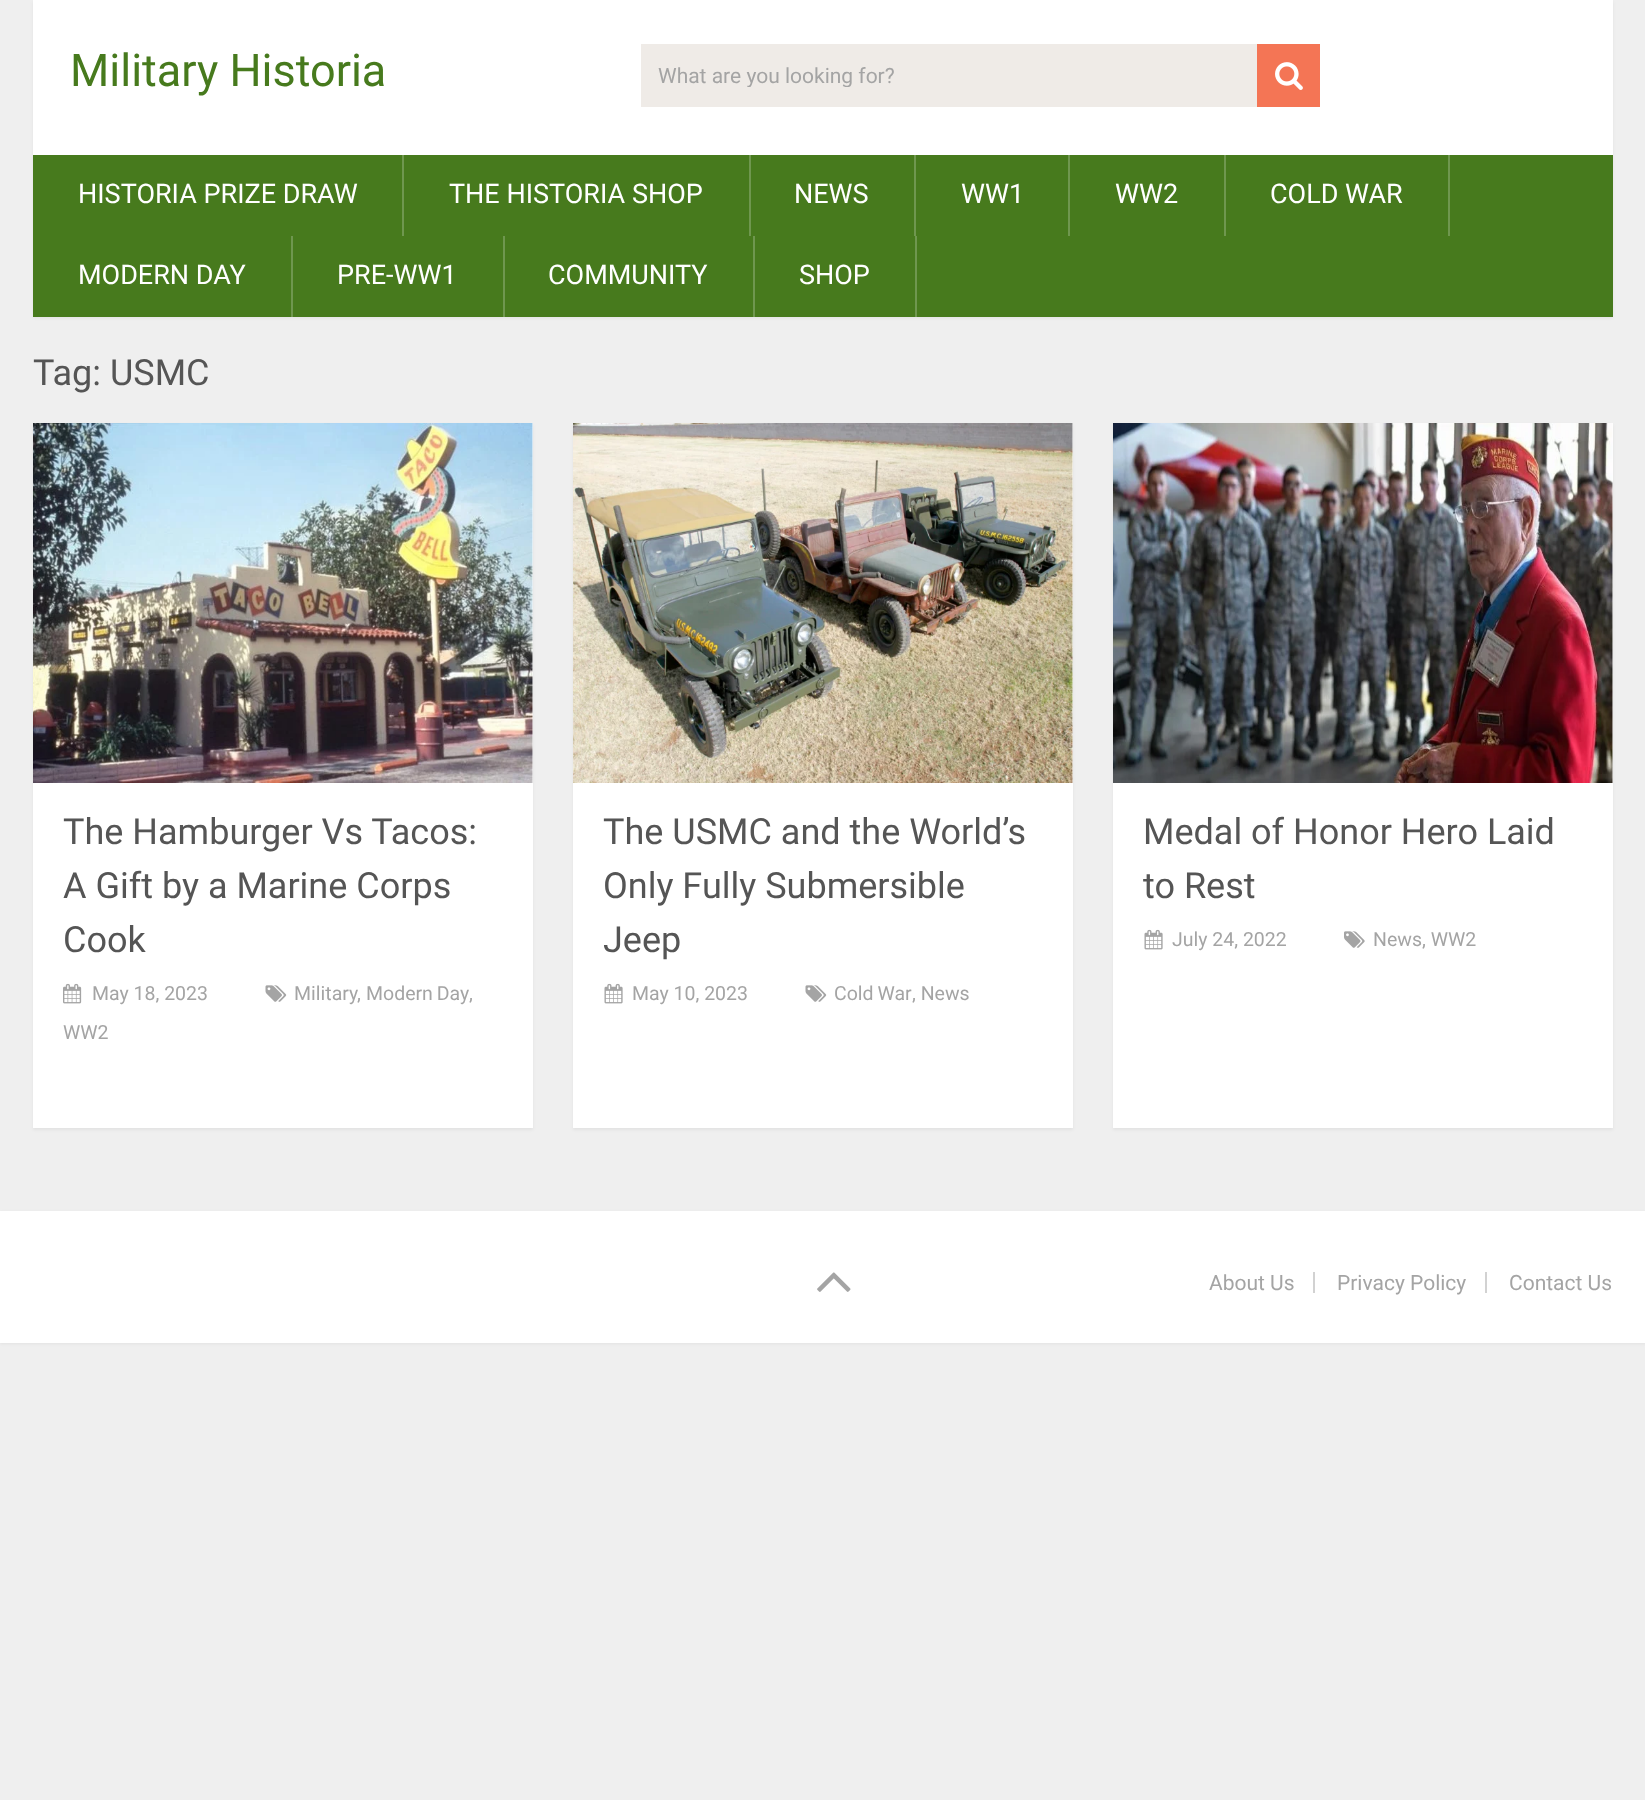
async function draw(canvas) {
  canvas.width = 1645;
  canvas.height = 1800;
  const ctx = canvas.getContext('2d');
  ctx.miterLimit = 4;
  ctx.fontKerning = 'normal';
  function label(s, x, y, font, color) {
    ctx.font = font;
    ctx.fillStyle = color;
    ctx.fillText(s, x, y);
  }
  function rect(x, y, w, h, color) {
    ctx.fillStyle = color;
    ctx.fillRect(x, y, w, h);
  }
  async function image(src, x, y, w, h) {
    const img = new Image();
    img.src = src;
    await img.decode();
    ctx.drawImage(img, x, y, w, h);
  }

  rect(0, 0, 1645, 1800, '#efefef');
  ctx.fillStyle = '#0000000d';
  ctx.filter = 'blur(1.5px)';
  ctx.beginPath();
  ctx.rect(33, 2, 1580, 316);
  ctx.fill();
  ctx.filter = 'none';
  rect(33, 0, 1580, 155, '#fff');
  label('Military Historia', 70, 86, '45px Roboto', '#477a1d');
  rect(641, 44, 616, 63, '#efebe7');
  ctx.save();
  ctx.beginPath();
  ctx.rect(642, 63, 677, 24);
  ctx.clip();
  label('What are you looking for?', 658, 83, '21px Roboto', '#a4a4a4');
  ctx.restore();
  rect(1257, 44, 63, 63, '#f47555');
  await image('assets/img1.png', 1275, 62, 28, 28);
  rect(33, 155, 1580, 162, '#477a1d');
  rect(402, 155, 2, 81, '#6f974f');
  label('HISTORIA PRIZE DRAW', 78, 203, '27px Roboto', '#fff');
  rect(749, 155, 2, 81, '#6f974f');
  label('THE HISTORIA SHOP', 449, 203, '27px Roboto', '#fff');
  rect(914, 155, 2, 81, '#6f974f');
  label('NEWS', 794, 203, '27px Roboto', '#fff');
  rect(1068, 155, 2, 81, '#6f974f');
  label('WW1', 961, 203, '27px Roboto', '#fff');
  rect(1224, 155, 2, 81, '#6f974f');
  label('WW2', 1115, 203, '27px Roboto', '#fff');
  rect(1448, 155, 2, 81, '#6f974f');
  label('COLD WAR', 1270, 203, '27px Roboto', '#fff');
  rect(291, 236, 2, 81, '#6f974f');
  label('MODERN DAY', 78, 284, '27px Roboto', '#fff');
  rect(503, 236, 2, 81, '#6f974f');
  label('PRE-WW1', 337, 284, '27px Roboto', '#fff');
  rect(753, 236, 2, 81, '#6f974f');
  label('COMMUNITY', 548, 284, '27px Roboto', '#fff');
  rect(915, 236, 2, 81, '#6f974f');
  label('SHOP', 799, 284, '27px Roboto', '#fff');
  label('Tag: USMC', 33, 385, '36px Roboto', '#555');
  ctx.fillStyle = '#0000000d';
  ctx.filter = 'blur(1.5px)';
  ctx.beginPath();
  ctx.rect(33, 425, 500, 705);
  ctx.fill();
  ctx.filter = 'none';
  rect(33, 423, 500, 705, '#fff');
  await image('assets/img2.png', 33, 423, 500, 360);
  label('The Hamburger Vs Tacos:', 63, 844, '36px Roboto', '#555');
  label('A Gift by a Marine Corps', 63, 898, '36px Roboto', '#555');
  label('Cook', 63, 952, '36px Roboto', '#555');
  await image('assets/img3.png', 265, 985, 22, 17);
  label('Military', 294, 1000, '19.5px Roboto', '#a4a4a4');
  label(',', 357, 1000, '19.5px Roboto', '#a4a4a4');
  ctx.wordSpacing = '-1px';
  label('Modern Day', 366, 1000, '19.5px Roboto', '#a4a4a4');
  ctx.wordSpacing = '0px';
  label(',', 469, 1000, '19.5px Roboto', '#a4a4a4');
  label('WW2', 63, 1039, '19.5px Roboto', '#a4a4a4');
  await image('assets/img4.png', 63, 983, 19, 21);
  label('May 18, 2023', 92, 1000, '19.5px Roboto', '#a4a4a4');
  ctx.fillStyle = '#0000000d';
  ctx.filter = 'blur(1.5px)';
  ctx.beginPath();
  ctx.rect(573, 425, 500, 705);
  ctx.fill();
  ctx.filter = 'none';
  rect(573, 423, 500, 705, '#fff');
  await image('assets/img5.png', 573, 423, 500, 360);
  label('The USMC and the World’s', 603, 844, '36px Roboto', '#555');
  label('Only Fully Submersible', 603, 898, '36px Roboto', '#555');
  label('Jeep', 603, 952, '36px Roboto', '#555');
  await image('assets/img6.png', 604, 983, 19, 21);
  label('May 10, 2023', 632, 1000, '19.5px Roboto', '#a4a4a4');
  await image('assets/img3.png', 805, 985, 22, 17);
  ctx.wordSpacing = '-1px';
  label('Cold War', 834, 1000, '19.5px Roboto', '#a4a4a4');
  ctx.wordSpacing = '0px';
  label(', News', 912, 1000, '19.5px Roboto', '#a4a4a4');
  ctx.fillStyle = '#0000000d';
  ctx.filter = 'blur(1.5px)';
  ctx.beginPath();
  ctx.rect(1113, 425, 500, 705);
  ctx.fill();
  ctx.filter = 'none';
  rect(1113, 423, 500, 705, '#fff');
  await image('assets/img7.png', 1113, 423, 500, 360);
  label('Medal of Honor Hero Laid', 1143, 844, '36px Roboto', '#555');
  label('to Rest', 1143, 898, '36px Roboto', '#555');
  await image('assets/img6.png', 1144, 929, 19, 21);
  label('July 24, 2022', 1172, 946, '19.5px Roboto', '#a4a4a4');
  await image('assets/img8.png', 1344, 931, 21, 17);
  label('News, WW2', 1373, 946, '19.5px Roboto', '#a4a4a4');
  ctx.fillStyle = '#0000000d';
  ctx.filter = 'blur(1.5px)';
  ctx.beginPath();
  ctx.rect(0, 1212, 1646, 132);
  ctx.fill();
  ctx.filter = 'none';
  rect(0, 1211, 1645, 132, '#fff');
  await image('assets/img9.png', 817, 1272, 34, 20);
  rect(1313, 1272, 2, 21, '#d2d2d2');
  label('About Us', 1209, 1290, '21px Roboto', '#a4a4a4');
  rect(1485, 1272, 2, 21, '#d2d2d2');
  label('Privacy Policy', 1337, 1290, '21px Roboto', '#a4a4a4');
  label('Contact Us', 1509, 1290, '21px Roboto', '#a4a4a4');
}

draw(document.querySelector('canvas'));
